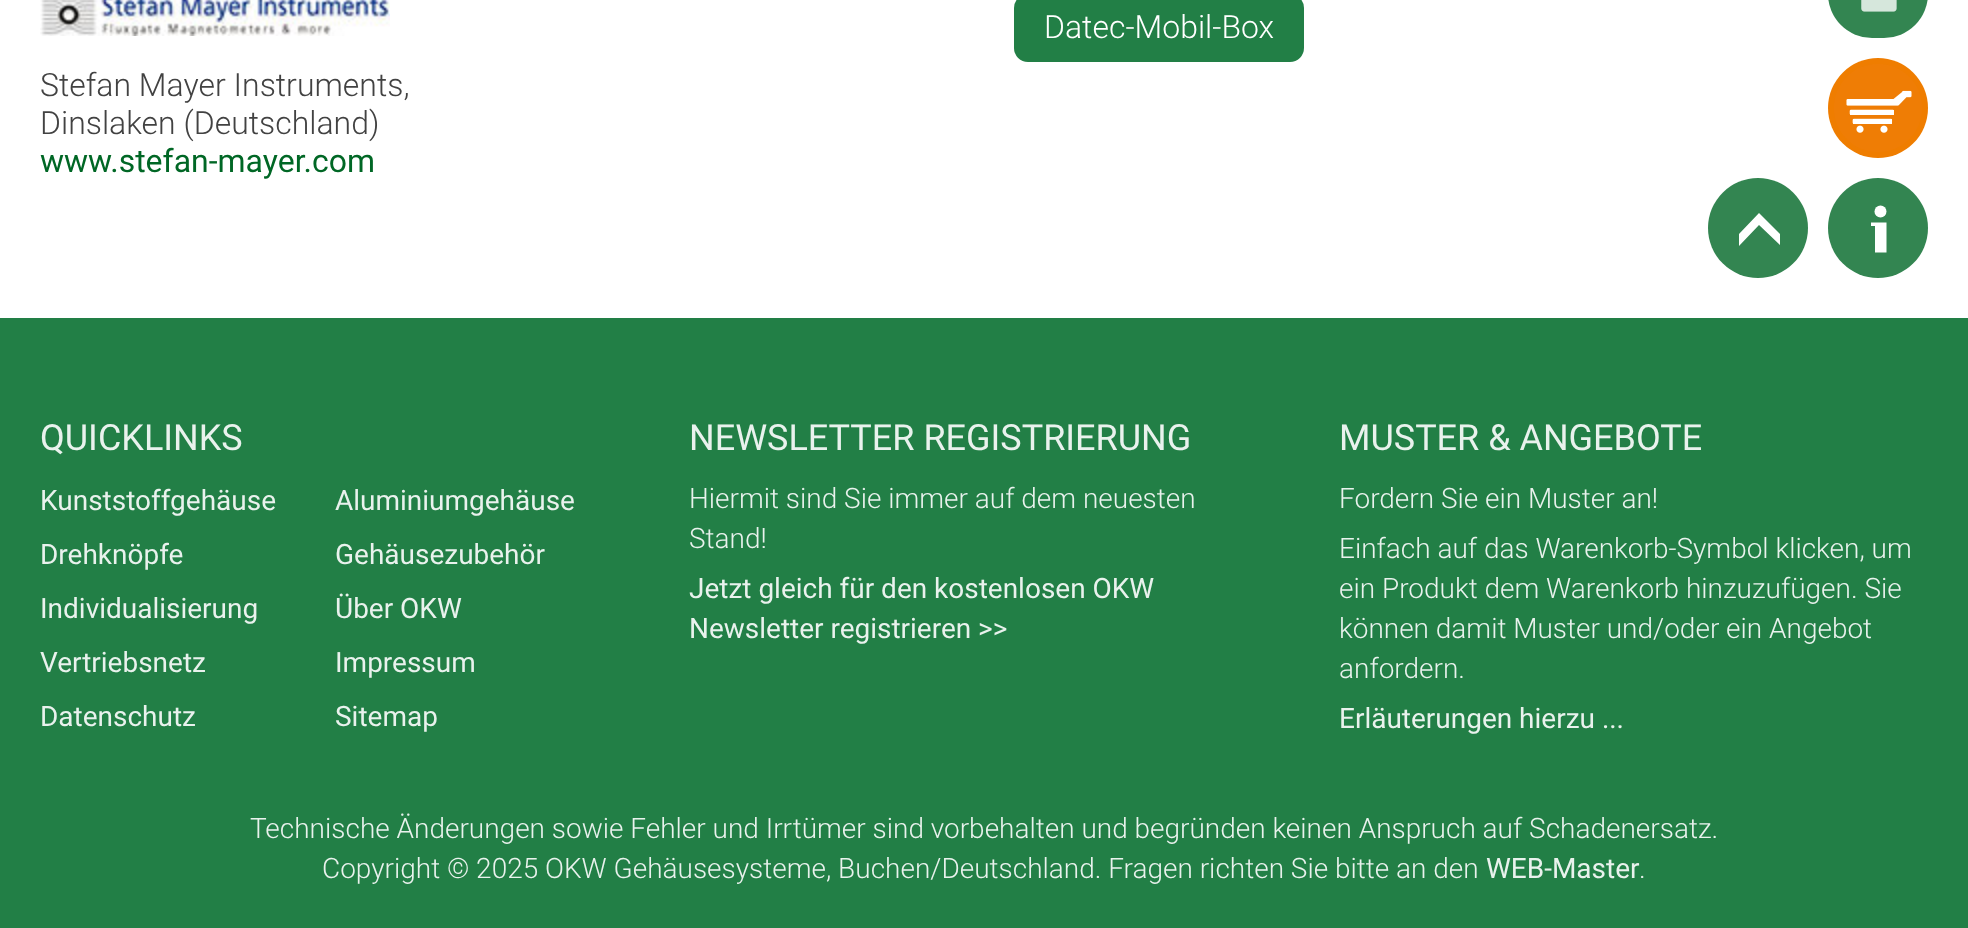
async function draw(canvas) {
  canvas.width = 1968;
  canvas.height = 928;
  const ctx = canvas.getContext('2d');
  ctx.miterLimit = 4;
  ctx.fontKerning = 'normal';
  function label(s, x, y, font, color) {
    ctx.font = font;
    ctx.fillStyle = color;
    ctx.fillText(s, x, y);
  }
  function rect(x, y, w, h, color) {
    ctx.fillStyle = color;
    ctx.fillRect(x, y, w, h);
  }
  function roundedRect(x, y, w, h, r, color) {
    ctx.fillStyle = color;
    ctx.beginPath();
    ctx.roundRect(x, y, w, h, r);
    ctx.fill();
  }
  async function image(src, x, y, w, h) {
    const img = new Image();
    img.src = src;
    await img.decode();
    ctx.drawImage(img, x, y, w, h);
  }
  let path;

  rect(0, 0, 1968, 928, '#fff');
  roundedRect(1014, -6, 290, 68, 14, '#227f46');
  label('Datec-Mobil-Box', 1044, 38, '300 32px Roboto', '#fff');
  await image('assets/img1.png', 40, 0, 350, 36);
  label('Stefan Mayer Instruments,', 40, 96, '300 32px Roboto', '#424242');
  label('Dinslaken (Deutschland)', 40, 134, '300 32px Roboto', '#424242');
  label('www.stefan-mayer.com', 40, 172, '32px Roboto', '#006725');
  roundedRect(1828, -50, 100, 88, 50, '#338551');
  await image('assets/img2.png', 1861, 0, 36, 12);
  ctx.fillStyle = '#ef7d00';
  ctx.beginPath();
  ctx.arc(1878, 108, 50, 0, 2 * Math.PI);
  ctx.fill();
  await image('assets/img3.png', 1834, 64, 88, 88);
  ctx.fillStyle = '#338551';
  ctx.beginPath();
  ctx.arc(1758, 228, 50, 0, 2 * Math.PI);
  ctx.fill();
  ctx.fillStyle = '#fff';
  path = new Path2D('M1780 245L1759 225L1739 246V234L1759 213L1780 234Z');
  ctx.fill(path);
  ctx.fillStyle = '#338551';
  ctx.beginPath();
  ctx.arc(1878, 228, 50, 0, 2 * Math.PI);
  ctx.fill();
  ctx.fillStyle = '#fff';
  path = new Path2D('M1875 222.5H1871V226H1875V252.5H1886.5V222.5Z');
  ctx.fill(path);
  ctx.beginPath();
  ctx.arc(1880.5, 211.5, 6, 0, 2 * Math.PI);
  ctx.fill();
  rect(0, 318, 1968, 610, '#227f46');
  label('QUICKLINKS', 40, 450, '36px Roboto', '#e9f2ed');
  label('Kunststoffgehäuse', 40, 510, '28px Roboto', '#e9f2ed');
  label('Aluminiumgehäuse', 335, 510, '28px Roboto', '#e9f2ed');
  label('Drehknöpfe', 40, 564, '28px Roboto', '#e9f2ed');
  label('Gehäusezubehör', 335, 564, '28px Roboto', '#e9f2ed');
  label('Individualisierung', 40, 618, '28px Roboto', '#e9f2ed');
  label('Über OKW', 335, 618, '28px Roboto', '#e9f2ed');
  label('Vertriebsnetz', 40, 672, '28px Roboto', '#e9f2ed');
  label('Impressum', 335, 672, '28px Roboto', '#e9f2ed');
  label('Datenschutz', 40, 726, '28px Roboto', '#e9f2ed');
  label('Sitemap', 335, 726, '28px Roboto', '#e9f2ed');
  label('NEWSLETTER REGISTRIERUNG', 689, 450, '36px Roboto', '#e9f2ed');
  label('Hiermit sind Sie immer auf dem neuesten', 689, 508, '300 28px Roboto', '#e9f2ed');
  label('Stand!', 689, 548, '300 28px Roboto', '#e9f2ed');
  label('Jetzt gleich für den kostenlosen OKW', 689, 598, '28px Roboto', '#e9f2ed');
  label('Newsletter registrieren >>', 689, 638, '28px Roboto', '#e9f2ed');
  label('MUSTER & ANGEBOTE', 1339, 450, '36px Roboto', '#e9f2ed');
  label('Fordern Sie ein Muster an!', 1339, 508, '300 28px Roboto', '#e9f2ed');
  label('Einfach auf das Warenkorb-Symbol klicken, um', 1339, 558, '300 28px Roboto', '#e9f2ed');
  label('ein Produkt dem Warenkorb hinzuzufügen. Sie', 1339, 598, '300 28px Roboto', '#e9f2ed');
  label('können damit Muster und/oder ein Angebot', 1339, 638, '300 28px Roboto', '#e9f2ed');
  label('anfordern.', 1339, 678, '300 28px Roboto', '#e9f2ed');
  label('Erläuterungen hierzu ...', 1339, 728, '28px Roboto', '#e9f2ed');
  label('Technische Änderungen sowie Fehler und Irrtümer sind vorbehalten und begründen keinen Anspruch auf Schadenersatz.', 250, 838, '300 28px Roboto', '#e9f2ed');
  label('Copyright © 2025 OKW Gehäusesysteme, Buchen/Deutschland. Fragen richten Sie bitte an den', 322, 878, '300 28px Roboto', '#e9f2ed');
  label('WEB-Master', 1486, 878, '28px Roboto', '#e9f2ed');
  label('.', 1639, 878, '300 28px Roboto', '#e9f2ed');
}

draw(document.querySelector('canvas'));
